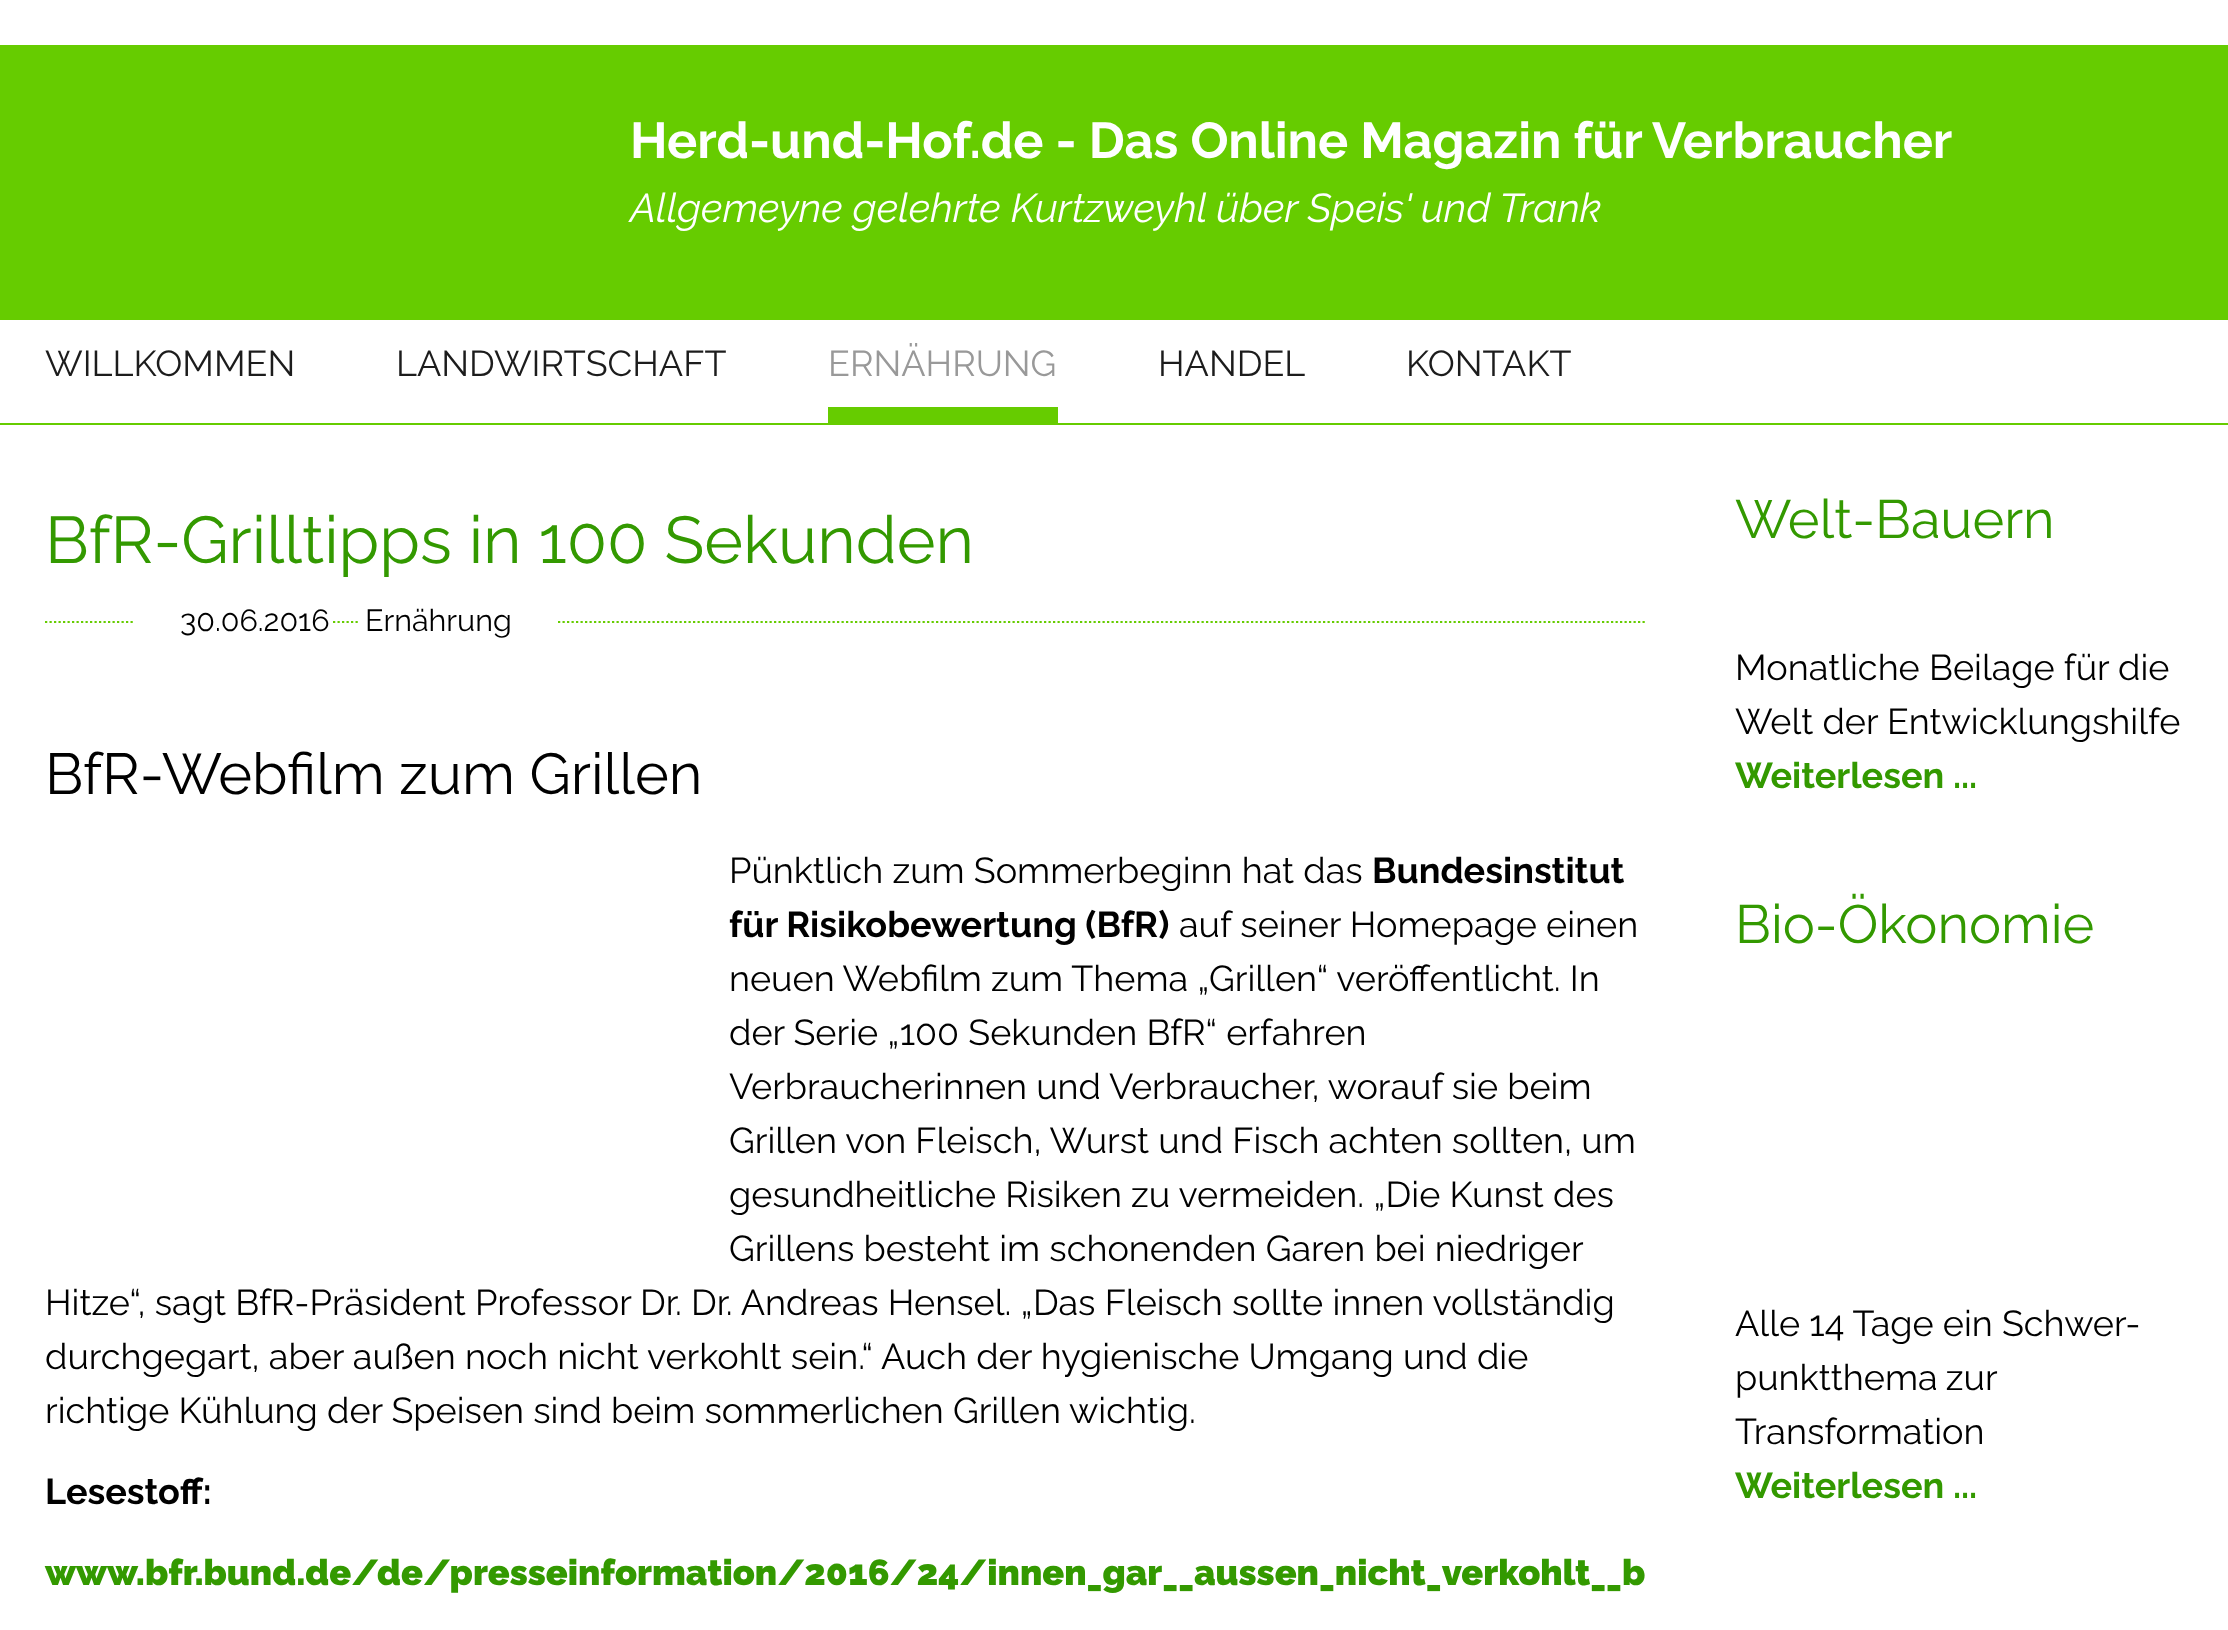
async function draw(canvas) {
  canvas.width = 2228;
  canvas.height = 1630;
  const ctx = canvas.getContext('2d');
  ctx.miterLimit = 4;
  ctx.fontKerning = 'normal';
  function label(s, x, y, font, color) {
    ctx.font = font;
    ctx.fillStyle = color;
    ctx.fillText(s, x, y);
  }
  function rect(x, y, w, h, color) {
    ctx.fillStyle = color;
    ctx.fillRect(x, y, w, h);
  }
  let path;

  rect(0, 0, 2228, 1630, '#fff');
  rect(0, 45, 2228, 275, '#6c0');
  label('Herd-und-Hof.de - Das Online Magazin für Verbraucher', 630, 158, 'bold 50.4px Raleway', '#fff');
  label('Allgemeyne gelehrte Kurtzweyhl über Speis\' und Trank', 630, 222, 'italic 40.3px Raleway', '#fff');
  rect(0, 423, 2228, 2, '#6c0');
  label('WILLKOMMEN', 45, 376, '36px Raleway', '#1c1c1c');
  label('LANDWIRTSCHAFT', 396, 376, '36px Raleway', '#1c1c1c');
  rect(828, 407, 230, 16, '#6c0');
  label('ERNÄHRUNG', 828, 376, '36px Raleway', '#999');
  label('HANDEL', 1158, 376, '36px Raleway', '#1c1c1c');
  label('KONTAKT', 1406, 376, '36px Raleway', '#1c1c1c');
  label('BfR-Grilltipps in 100 Sekunden', 45, 563, '66px Raleway', '#390');
  path = new Path2D('M45 622H1645');
  ctx.strokeStyle = '#6c0';
  ctx.lineWidth = 2.2;
  ctx.setLineDash([2.25, 2.25]);
  ctx.stroke(path);
  rect(135, 620, 196, 4, '#fff');
  label('30.06.2016', 180, 631, '30.5px Raleway', '#000');
  rect(360, 620, 196, 4, '#fff');
  label('Ernährung', 365, 631, '30.5px Raleway', '#000');
  label('BfR-Webfilm zum Grillen', 45, 794, '57.6px Raleway', '#000');
  label('Pünktlich zum Sommerbeginn hat das', 729, 883, '36px Raleway', '#000');
  label('Bundesinstitut', 1372, 883, 'bold 36px Raleway', '#000');
  label('für Risikobewertung (BfR)', 729, 937, 'bold 36px Raleway', '#000');
  label('auf seiner Homepage einen', 1179, 937, '36px Raleway', '#000');
  label('neuen Webfilm zum Thema „Grillen“ veröffentlicht. In', 729, 991, '36px Raleway', '#000');
  label('der Serie „100 Sekunden BfR“ erfahren', 729, 1045, '36px Raleway', '#000');
  label('Verbraucherinnen und Verbraucher, worauf sie beim', 729, 1099, '36px Raleway', '#000');
  label('Grillen von Fleisch, Wurst und Fisch achten sollten, um', 729, 1153, '36px Raleway', '#000');
  label('gesundheitliche Risiken zu vermeiden. „Die Kunst des', 729, 1207, '36px Raleway', '#000');
  label('Grillens besteht im schonenden Garen bei niedriger', 729, 1261, '36px Raleway', '#000');
  label('Hitze“, sagt BfR-Präsident Professor Dr. Dr. Andreas Hensel. „Das Fleisch sollte innen vollständig', 45, 1315, '36px Raleway', '#000');
  label('durchgegart, aber außen noch nicht verkohlt sein.“ Auch der hygienische Umgang und die', 45, 1369, '36px Raleway', '#000');
  label('richtige Kühlung der Speisen sind beim sommerlichen Grillen wichtig.', 45, 1423, '36px Raleway', '#000');
  label('Lesestoff:', 45, 1504, 'bold 36px Raleway', '#000');
  label('www.bfr.bund.de/de/presseinformation/2016/24/innen_gar__aussen_nicht_verkohlt__b', 45, 1585, '900 36px Raleway', '#390');
  label('Welt-Bauern', 1735, 538, '54px Raleway', '#390');
  label('Monatliche Beilage für die', 1735, 680, '36px Raleway', '#000');
  label('Welt der Entwicklungshilfe', 1735, 734, '36px Raleway', '#000');
  label('Weiterlesen ...', 1735, 788, 'bold 36px Raleway', '#390');
  label('Bio-Ökonomie', 1735, 943, '54px Raleway', '#390');
  label('Alle 14 Tage ein Schwer-', 1735, 1336, '36px Raleway', '#000');
  ctx.wordSpacing = '-1px';
  label('punktthema zur', 1735, 1390, '36px Raleway', '#000');
  ctx.wordSpacing = '0px';
  label('Transformation', 1735, 1444, '36px Raleway', '#000');
  label('Weiterlesen ...', 1735, 1498, 'bold 36px Raleway', '#390');
}

draw(document.querySelector('canvas'));
